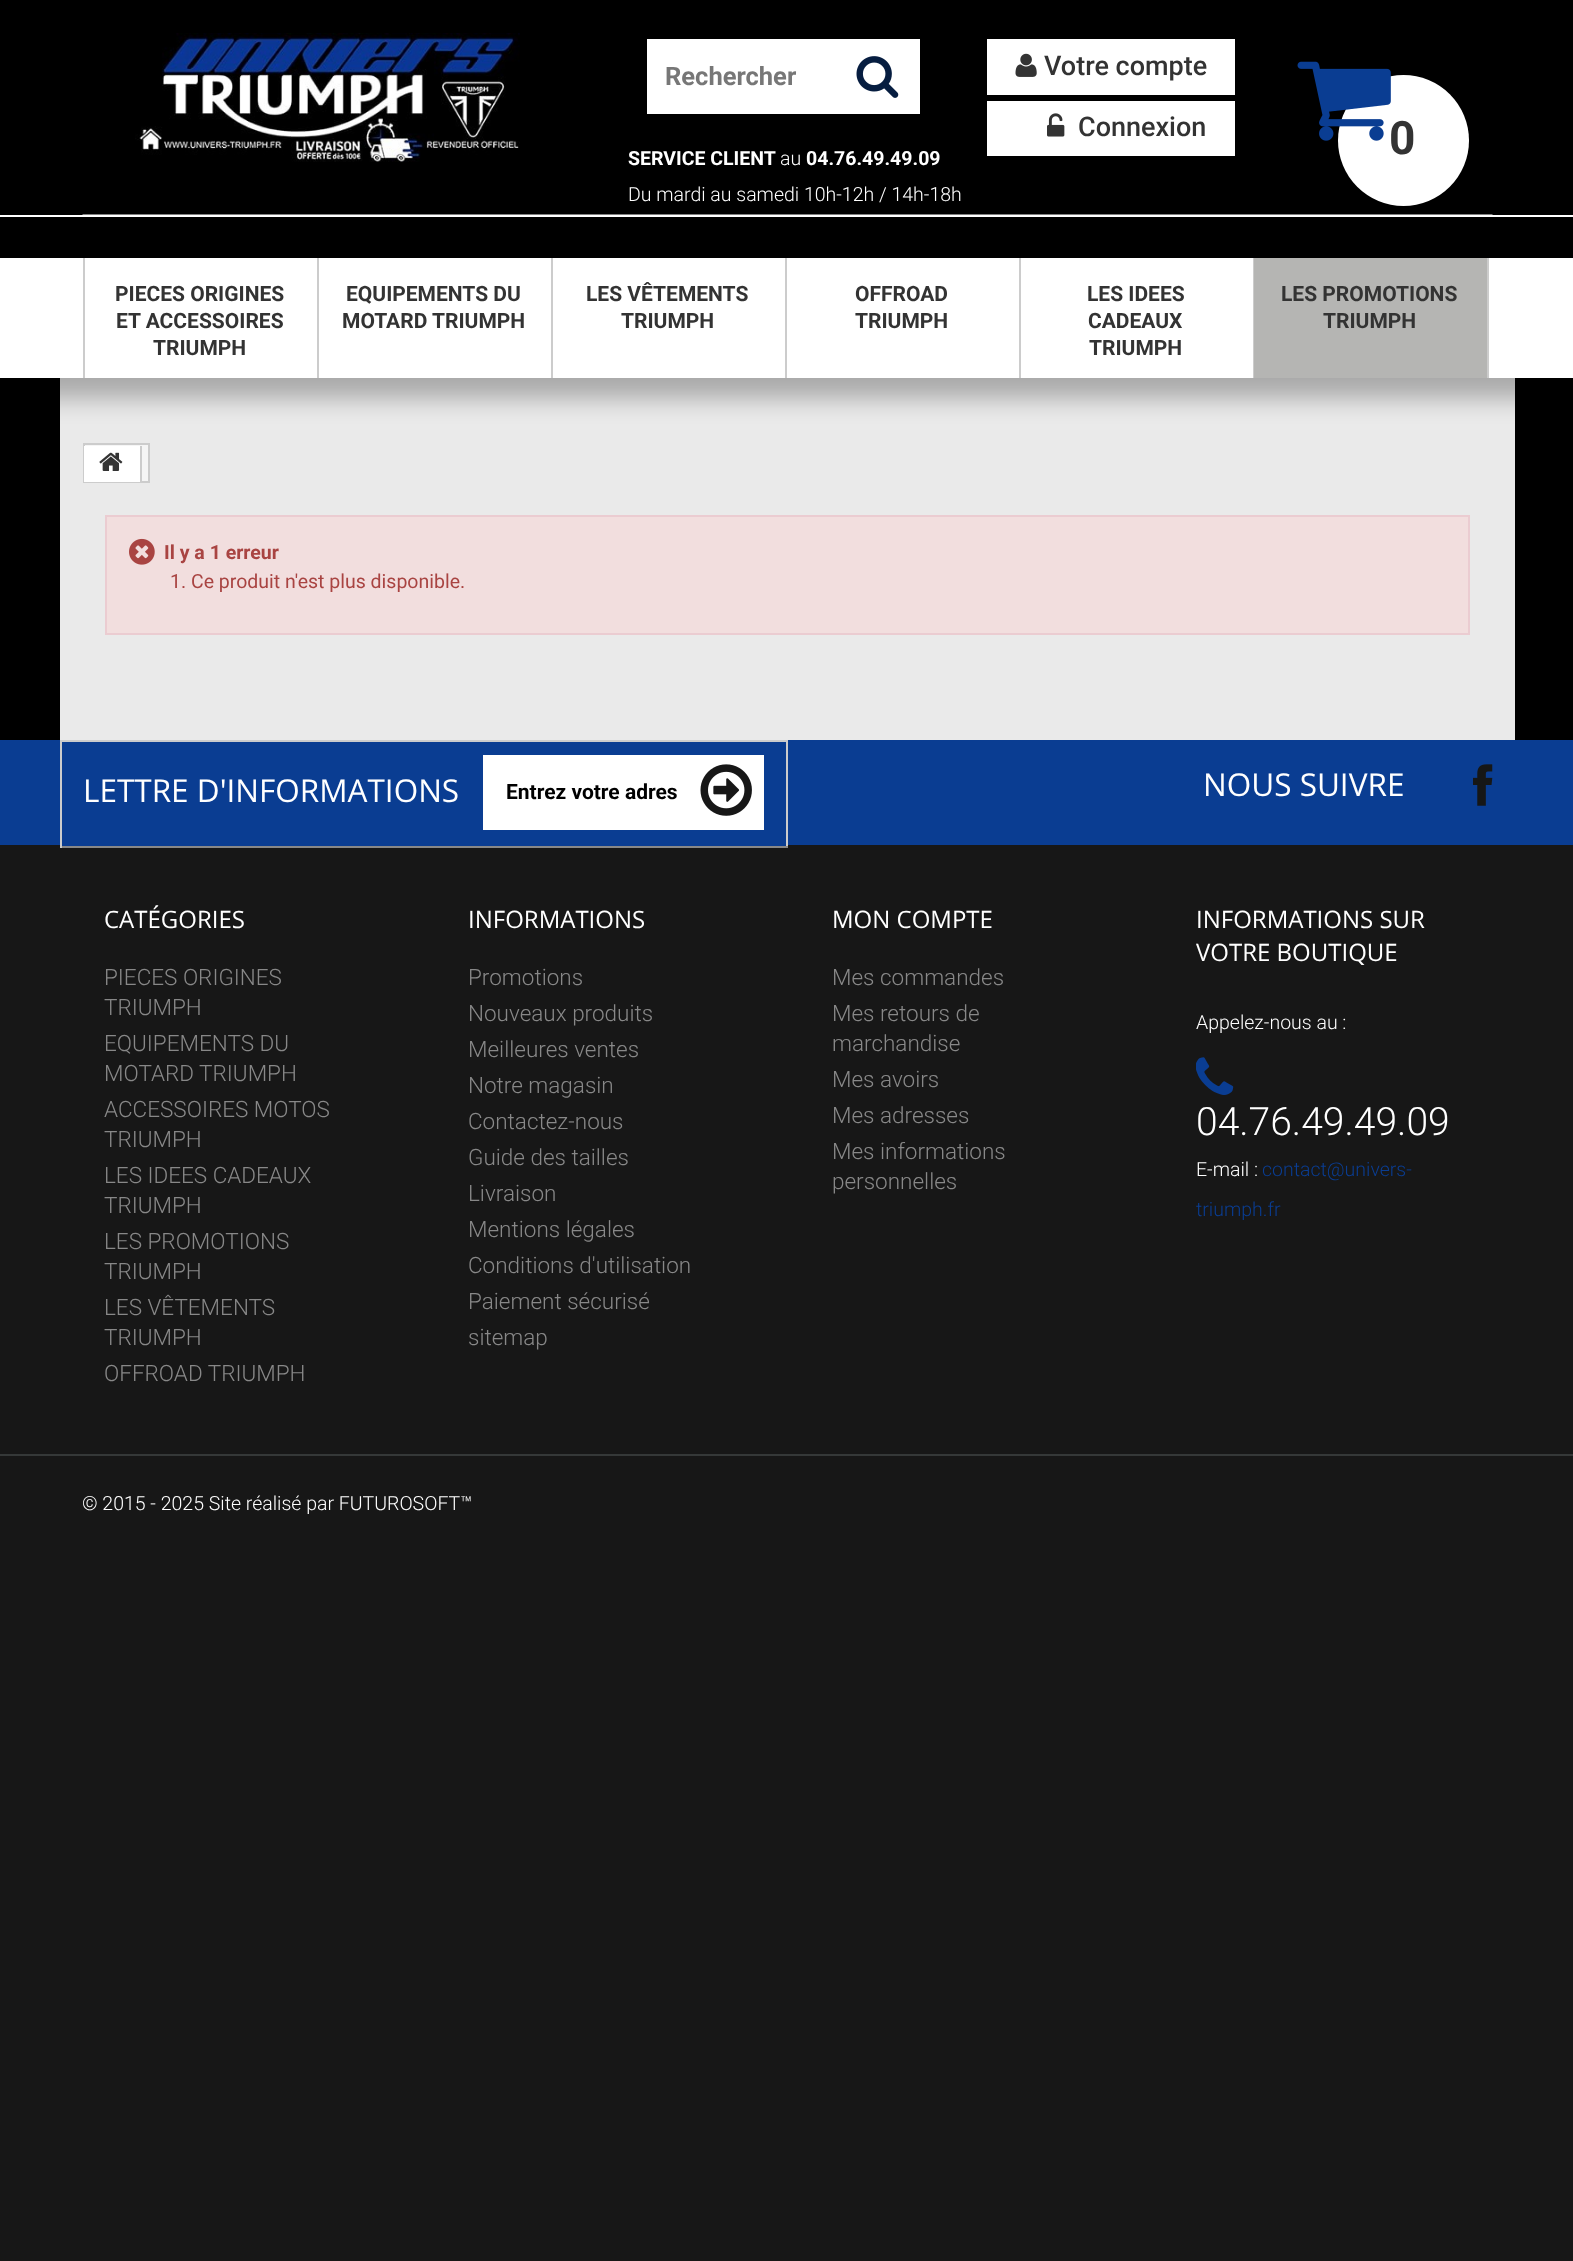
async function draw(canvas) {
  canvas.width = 1573;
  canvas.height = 2261;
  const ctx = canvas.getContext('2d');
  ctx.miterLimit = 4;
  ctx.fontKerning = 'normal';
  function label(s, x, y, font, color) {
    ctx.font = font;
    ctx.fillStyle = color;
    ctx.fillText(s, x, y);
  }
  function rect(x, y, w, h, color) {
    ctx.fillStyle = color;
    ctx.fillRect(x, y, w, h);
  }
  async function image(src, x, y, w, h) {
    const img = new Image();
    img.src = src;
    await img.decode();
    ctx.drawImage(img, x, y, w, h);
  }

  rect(0, 0, 1573, 2261, '#171717');
  rect(0, 0, 1573, 258, '#000');
  await image('assets/img1.png', 135, 33, 385, 129);
  rect(647, 39, 273, 75, '#fff');
  label('Rechercher', 665, 85, 'bold 25.5px Roboto', '#777');
  await image('assets/img2.png', 856, 56, 43, 42);
  rect(987, 39, 248, 56, '#fff');
  await image('assets/img3.png', 1015, 53, 22, 24);
  label('Votre compte', 1044, 75, '500 27px Roboto', '#333');
  rect(987, 101, 248, 55, '#fff');
  await image('assets/img4.png', 1047, 113, 18, 24);
  label('Connexion', 1078, 136, '500 27px Roboto', '#333');
  ctx.fillStyle = '#fff';
  ctx.beginPath();
  ctx.arc(1403.5, 140.5, 65.5, 0, 2 * Math.PI);
  ctx.fill();
  await image('assets/img5.png', 1297, 61, 94, 80);
  label('0', 1389, 154, 'bold 46px Roboto', '#333');
  label('SERVICE CLIENT', 628, 165, 'bold 19.5px Roboto', '#fff');
  label('au', 780, 165, '300 19.5px Roboto', '#fff');
  label('04.76.49.49.09', 806, 165, 'bold 19.5px Roboto', '#fff');
  label('Du mardi au samedi 10h-12h / 14h-18h', 628, 201, '300 19.5px Roboto', '#fff');
  rect(0, 378, 1573, 362, '#000');
  rect(60, 378, 1455, 362, '#eaeaea');
  ctx.fillStyle = '#00000047';
  ctx.filter = 'blur(12px)';
  ctx.beginPath();
  ctx.rect(0, 278, 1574, 120);
  ctx.fill();
  ctx.filter = 'none';
  rect(0, 258, 1573, 120, '#fff');
  rect(317, 258, 2, 120, '#ccc');
  rect(83, 258, 2, 120, '#ccc');
  label('PIECES ORIGINES', 115, 301, 'bold 21px Roboto', '#333');
  label('ET ACCESSOIRES', 116, 328, 'bold 21px Roboto', '#333');
  label('TRIUMPH', 153, 355, 'bold 21px Roboto', '#333');
  rect(551, 258, 2, 120, '#ccc');
  label('EQUIPEMENTS DU', 346, 301, 'bold 21px Roboto', '#333');
  label('MOTARD TRIUMPH', 342, 328, 'bold 21px Roboto', '#333');
  rect(785, 258, 2, 120, '#ccc');
  label('LES VÊTEMENTS', 586, 301, 'bold 21px Roboto', '#333');
  label('TRIUMPH', 621, 328, 'bold 21px Roboto', '#333');
  rect(1019, 258, 2, 120, '#ccc');
  label('OFFROAD', 855, 301, 'bold 21px Roboto', '#333');
  label('TRIUMPH', 855, 328, 'bold 21px Roboto', '#333');
  rect(1253, 258, 1, 120, '#ccc');
  label('LES IDEES', 1087, 301, 'bold 21px Roboto', '#333');
  label('CADEAUX', 1088, 328, 'bold 21px Roboto', '#333');
  label('TRIUMPH', 1089, 355, 'bold 21px Roboto', '#333');
  rect(1254, 258, 233, 120, '#b5b5b3');
  rect(1487, 258, 2, 120, '#ccc');
  label('LES PROMOTIONS', 1281, 301, 'bold 21px Roboto', '#333');
  label('TRIUMPH', 1323, 328, 'bold 21px Roboto', '#333');
  rect(0, 215, 1573, 2, '#fff');
  await image('assets/img6.png', 82, 214, 1411, 1);
  ctx.fillStyle = '#f5f5f5';
  ctx.beginPath();
  ctx.rect(84, 444, 65, 38);
  ctx.fill();
  ctx.strokeStyle = '#ccc';
  ctx.lineWidth = 2;
  ctx.stroke();
  rect(84, 446, 56, 36, '#fff');
  rect(140, 446, 2, 36, '#ccc');
  await image('assets/img7.png', 99, 452, 24, 19);
  ctx.fillStyle = '#f2dede';
  ctx.beginPath();
  ctx.rect(106, 516, 1363, 118);
  ctx.fill();
  ctx.strokeStyle = '#ebccd1';
  ctx.stroke();
  await image('assets/img8.png', 129, 538, 26, 27);
  label('Il y a 1 erreur', 164, 559, 'bold 19.5px Roboto', '#a94442');
  label('1. Ce produit n\'est plus disponible.', 170, 588, '19.5px Roboto', '#a94442');
  rect(0, 740, 1573, 105, '#0a3d92');
  rect(62, 845, 724, 1, '#0a3d92');
  rect(60, 740, 728, 2, '#ccc');
  rect(786, 740, 2, 108, '#ccc');
  rect(60, 846, 728, 2, '#888');
  rect(60, 740, 2, 108, '#ccc');
  label('LETTRE D\'INFORMATIONS', 83, 802, '31.5px Open Sans', '#fff');
  rect(483, 755, 281, 75, '#fff');
  label('Entrez votre adres', 506, 799, 'bold 21px Roboto', '#000');
  await image('assets/img9.png', 700, 764, 52, 52);
  label('NOUS SUIVRE', 1203, 796, '31.5px Open Sans', '#fff');
  await image('assets/img10.png', 1473, 764, 20, 42);
  label('CATÉGORIES', 104, 928, '24px Open Sans', '#fff');
  label('PIECES ORIGINES', 104, 985, '300 22.5px Roboto', '#888');
  label('TRIUMPH', 104, 1015, '300 22.5px Roboto', '#888');
  label('EQUIPEMENTS DU', 104, 1051, '300 22.5px Roboto', '#888');
  label('MOTARD TRIUMPH', 104, 1081, '300 22.5px Roboto', '#888');
  label('ACCESSOIRES MOTOS', 104, 1117, '300 22.5px Roboto', '#888');
  label('TRIUMPH', 104, 1147, '300 22.5px Roboto', '#888');
  label('LES IDEES CADEAUX', 104, 1183, '300 22.5px Roboto', '#888');
  label('TRIUMPH', 104, 1213, '300 22.5px Roboto', '#888');
  label('LES PROMOTIONS', 104, 1249, '300 22.5px Roboto', '#888');
  label('TRIUMPH', 104, 1279, '300 22.5px Roboto', '#888');
  label('LES VÊTEMENTS', 104, 1315, '300 22.5px Roboto', '#888');
  label('TRIUMPH', 104, 1345, '300 22.5px Roboto', '#888');
  label('OFFROAD TRIUMPH', 104, 1381, '300 22.5px Roboto', '#888');
  label('INFORMATIONS', 468, 928, '24px Open Sans', '#fff');
  label('Promotions', 468, 985, '300 22.5px Roboto', '#888');
  label('Nouveaux produits', 468, 1021, '300 22.5px Roboto', '#888');
  label('Meilleures ventes', 468, 1057, '300 22.5px Roboto', '#888');
  label('Notre magasin', 468, 1093, '300 22.5px Roboto', '#888');
  label('Contactez-nous', 468, 1129, '300 22.5px Roboto', '#888');
  label('Guide des tailles', 468, 1165, '300 22.5px Roboto', '#888');
  label('Livraison', 468, 1201, '300 22.5px Roboto', '#888');
  label('Mentions légales', 468, 1237, '300 22.5px Roboto', '#888');
  label('Conditions d\'utilisation', 468, 1273, '300 22.5px Roboto', '#888');
  label('Paiement sécurisé', 468, 1309, '300 22.5px Roboto', '#888');
  label('sitemap', 468, 1345, '300 22.5px Roboto', '#888');
  label('MON COMPTE', 832, 928, '24px Open Sans', '#fff');
  label('Mes commandes', 832, 985, '300 22.5px Roboto', '#888');
  label('Mes retours de', 832, 1021, '300 22.5px Roboto', '#888');
  label('marchandise', 832, 1051, '300 22.5px Roboto', '#888');
  label('Mes avoirs', 832, 1087, '300 22.5px Roboto', '#888');
  label('Mes adresses', 832, 1123, '300 22.5px Roboto', '#888');
  label('Mes informations', 832, 1159, '300 22.5px Roboto', '#888');
  label('personnelles', 832, 1189, '300 22.5px Roboto', '#888');
  label('INFORMATIONS SUR', 1196, 928, '24px Open Sans', '#fff');
  label('VOTRE BOUTIQUE', 1196, 961, '24px Open Sans', '#fff');
  label('Appelez-nous au :', 1196, 1029, '300 19.5px Roboto', '#fff');
  await image('assets/img11.png', 1196, 1057, 38, 38);
  label('04.76.49.49.09', 1196, 1135, '300 39px Roboto', '#fff');
  label('E-mail :', 1196, 1176, '300 19.5px Roboto', '#fff');
  label('contact@univers-', 1262, 1176, '300 19.5px Roboto', '#0a3d92');
  label('triumph.fr', 1196, 1216, '300 19.5px Roboto', '#0a3d92');
  rect(0, 1454, 1573, 2, '#353838');
  label('© 2015 - 2025 Site réalisé par FUTUROSOFT™', 82, 1510, '300 19.5px Roboto', '#fff');
}

draw(document.querySelector('canvas'));
